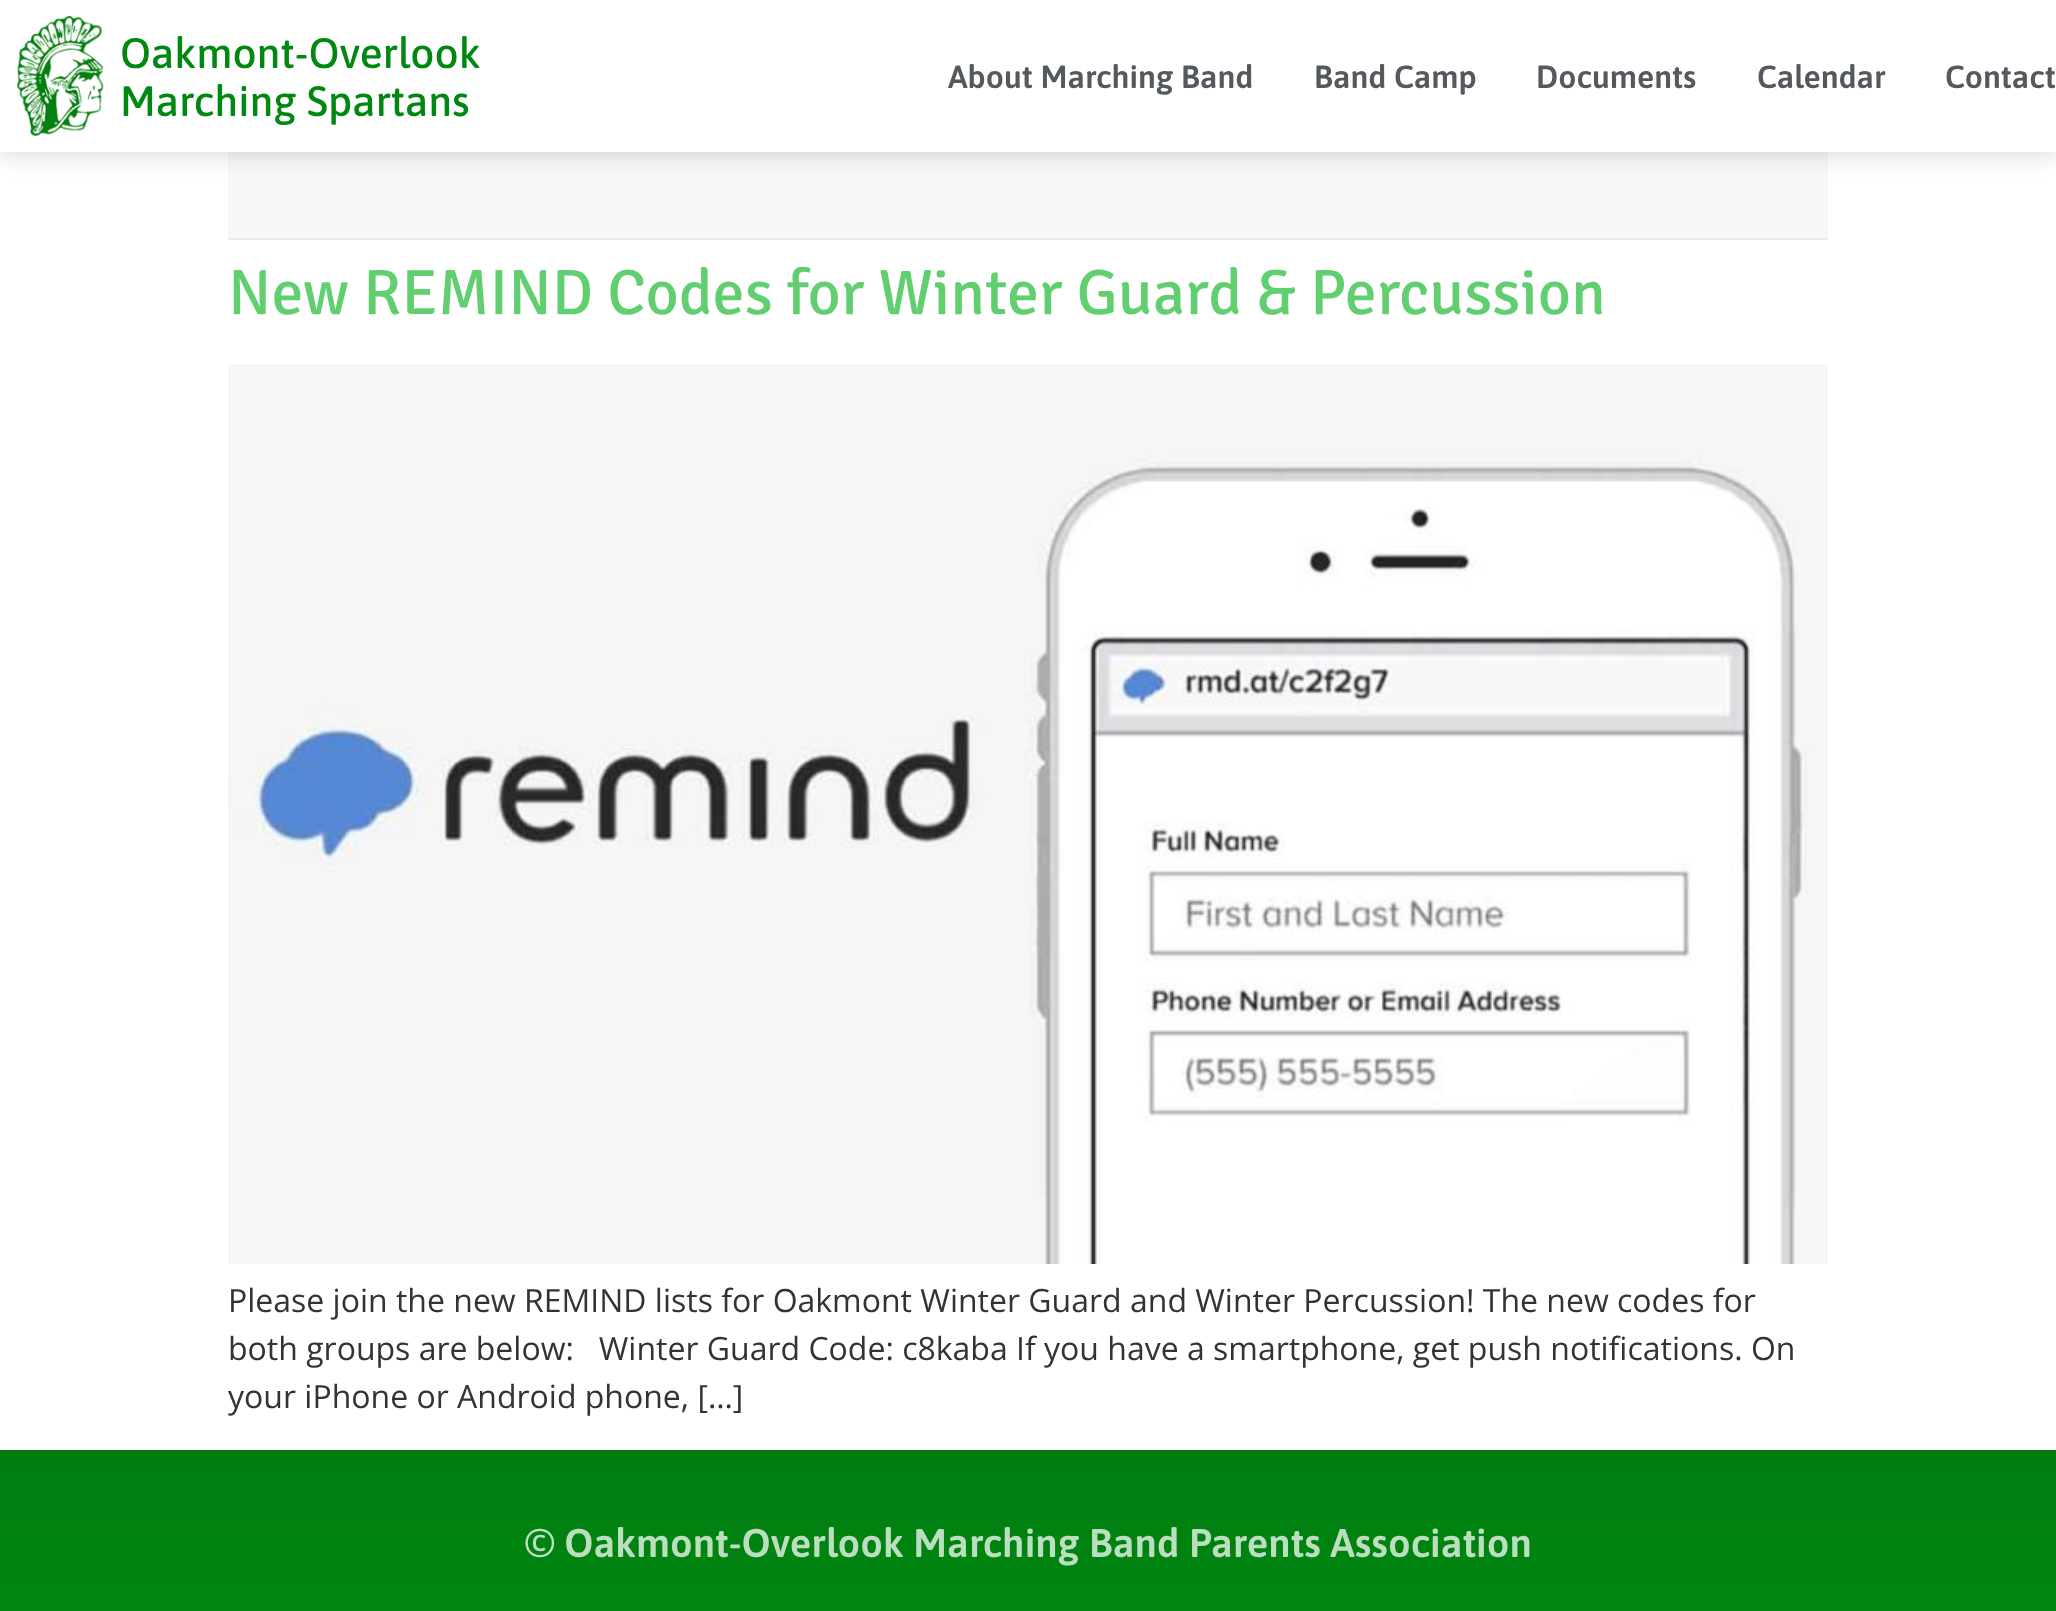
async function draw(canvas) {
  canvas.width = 2056;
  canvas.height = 1611;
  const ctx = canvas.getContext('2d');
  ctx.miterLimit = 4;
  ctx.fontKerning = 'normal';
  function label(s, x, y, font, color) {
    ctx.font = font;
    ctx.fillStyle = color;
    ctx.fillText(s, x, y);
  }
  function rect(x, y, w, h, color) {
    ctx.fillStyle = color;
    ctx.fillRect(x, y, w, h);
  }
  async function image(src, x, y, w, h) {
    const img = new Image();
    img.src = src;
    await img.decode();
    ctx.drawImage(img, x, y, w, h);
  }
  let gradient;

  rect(0, 0, 2056, 1611, '#fff');
  rect(228, 152, 1600, 86, '#f8f8f8');
  ctx.fillStyle = '#0000001f';
  ctx.filter = 'blur(10px)';
  ctx.beginPath();
  ctx.rect(0, 6, 2056, 152);
  ctx.fill();
  ctx.filter = 'none';
  rect(0, 0, 2056, 152, '#fff');
  await image('assets/img1.png', 16, 16, 88, 120);
  label('Oakmont-Overlook', 120, 68, '500 42.5px Asap', '#081');
  label('Marching Spartans', 120, 116, '500 42.5px Asap', '#081');
  label('About Marching Band', 948, 88, '600 32px Asap', '#54595f');
  label('Band Camp', 1314, 88, '600 32px Asap', '#54595f');
  label('Documents', 1536, 88, '600 32px Asap', '#54595f');
  label('Calendar', 1757, 88, '600 32px Asap', '#54595f');
  label('Contact', 1945, 88, '600 32px Asap', '#54595f');
  rect(228, 238, 1600, 2, '#ebebeb');
  label('New REMIND Codes for Winter Guard & Percussion', 228, 314, '64px Signika', '#61ce70');
  await image('assets/img2.png', 228, 364, 1600, 900);
  label('Please join the new REMIND lists for Oakmont Winter Guard and Winter Percussion! The new codes for', 228, 1312, '32px Open Sans', '#333');
  label('both groups are below:   Winter Guard Code: c8kaba If you have a smartphone, get push notifications. On', 228, 1360, '32px Open Sans', '#333');
  label('your iPhone or Android phone, […]', 228, 1408, '32px Open Sans', '#333');
  gradient = ctx.createLinearGradient(1028, 1450, 1028, 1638);
  gradient.addColorStop(0, '#007c10');
  gradient.addColorStop(1, '#081');
  ctx.fillStyle = gradient;
  ctx.fillRect(0, 1450, 2056, 161);
  label('© Oakmont-Overlook Marching Band Parents Association', 525, 1557, '600 40px Asap', '#bbdebf');
}

draw(document.querySelector('canvas'));
